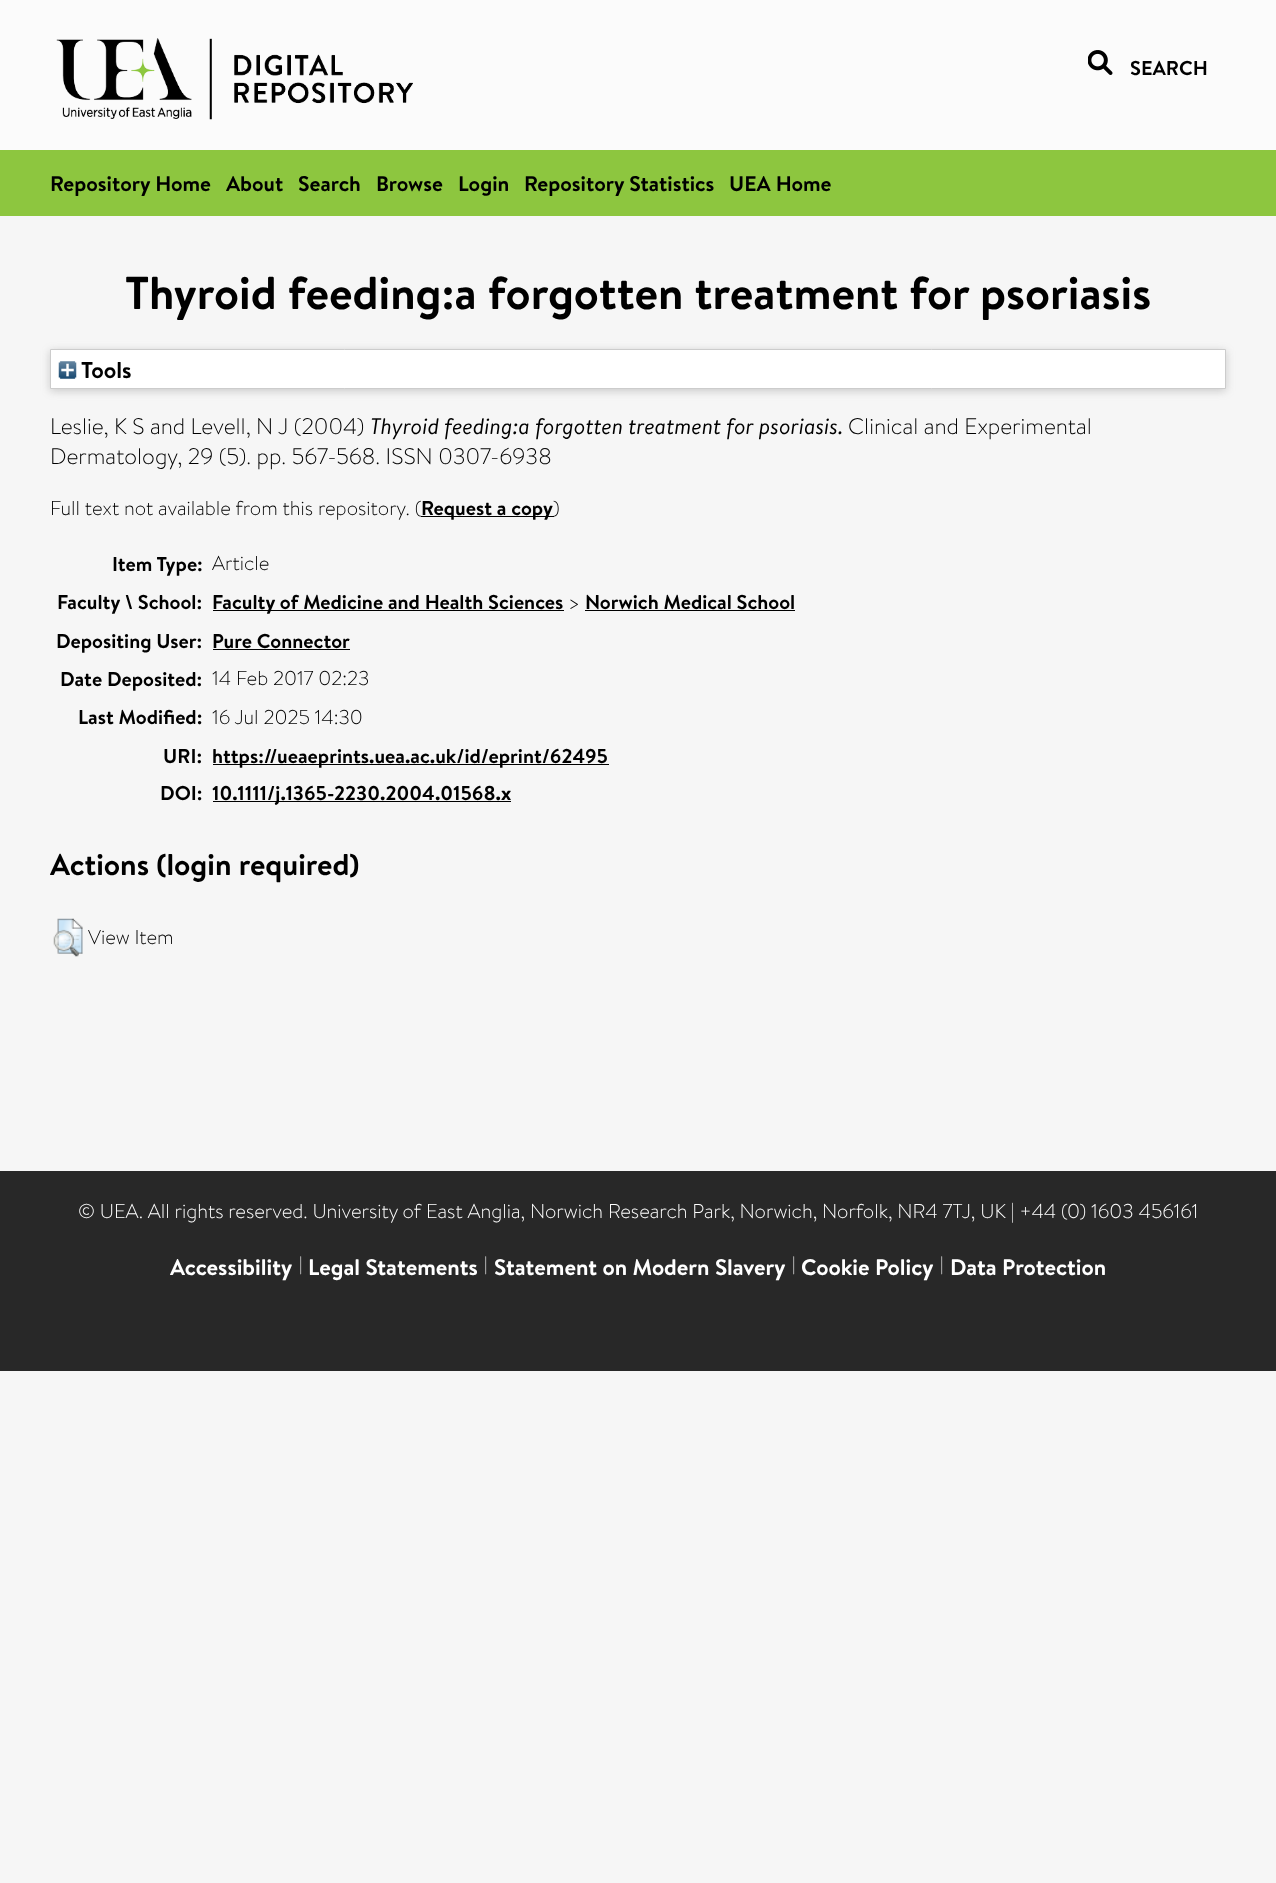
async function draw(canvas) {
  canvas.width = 1276;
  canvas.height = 1883;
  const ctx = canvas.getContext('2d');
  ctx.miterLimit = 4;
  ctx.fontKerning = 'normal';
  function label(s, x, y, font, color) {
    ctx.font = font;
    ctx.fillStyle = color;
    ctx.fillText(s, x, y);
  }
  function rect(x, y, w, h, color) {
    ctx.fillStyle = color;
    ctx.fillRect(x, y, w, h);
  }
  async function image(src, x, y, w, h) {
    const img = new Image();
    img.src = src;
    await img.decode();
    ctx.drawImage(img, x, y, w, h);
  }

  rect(0, 0, 1276, 1883, '#f6f6f6');
  rect(0, 0, 1276, 150, '#fbfbfb');
  await image('assets/img1.png', 56, 38, 357, 82);
  await image('assets/img2.png', 1088, 50, 25, 25);
  label('SEARCH', 1130, 75, 'bold 20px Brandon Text', '#000');
  rect(0, 150, 1276, 66, '#8dc63f');
  label('Repository Home', 50, 191, 'bold 21.25px Brandon Text', '#000');
  label('About', 226, 191, 'bold 21.25px Brandon Text', '#000');
  label('Search', 298, 191, 'bold 21.25px Brandon Text', '#000');
  label('Browse', 376, 191, 'bold 21.25px Brandon Text', '#000');
  label('Login', 458, 191, 'bold 21.25px Brandon Text', '#000');
  label('Repository Statistics', 524, 191, 'bold 21.25px Brandon Text', '#000');
  label('UEA Home', 729, 191, 'bold 21.25px Brandon Text', '#000');
  label('Thyroid feeding:a forgotten treatment for psoriasis', 125, 309, 'bold 46px Brandon Text', '#000');
  ctx.fillStyle = '#6464644d';
  ctx.filter = 'blur(4px)';
  ctx.beginPath();
  ctx.rect(50, 351, 1176, 40);
  ctx.fill();
  ctx.filter = 'none';
  ctx.fillStyle = '#fff';
  ctx.beginPath();
  ctx.rect(50.5, 349.5, 1175, 39);
  ctx.fill();
  ctx.strokeStyle = '#ccc';
  ctx.stroke();
  await image('assets/img3.png', 58, 361, 19, 18);
  label('Tools', 81, 378, 'bold 23px Brandon Text', '#000');
  label('Leslie, K S and Levell, N J (2004)', 50, 434, '300 22.5px Brandon Text', '#000');
  label('Thyroid feeding:a forgotten treatment for psoriasis.', 370, 434, 'italic 22.5px Brandon Text', '#000');
  label('Clinical and Experimental', 848, 434, '300 22.5px Brandon Text', '#000');
  label('Dermatology, 29 (5). pp. 567-568. ISSN 0307-6938', 50, 464, '300 22.5px Brandon Text', '#000');
  label('Full text not available from this repository. (', 50, 515, '300 20px Brandon Text', '#000');
  rect(421, 516, 133, 1, '#000');
  label('Request a copy', 421, 515, 'bold 20px Brandon Text', '#000');
  label(')', 553, 515, '300 20px Brandon Text', '#000');
  label('Item Type:', 112, 571, 'bold 20px Brandon Text', '#000');
  label('Article', 212, 570, '300 20px Brandon Text', '#000');
  label('Faculty \\ School:', 57, 609, 'bold 20px Brandon Text', '#000');
  rect(213, 610, 351, 1, '#000');
  label('Faculty of Medicine and Health Sciences', 212, 609, 'bold 20px Brandon Text', '#000');
  label('>', 568, 609, '300 20px Brandon Text', '#000');
  label('Norwich Medical School', 585, 609, 'bold 20px Brandon Text', '#000');
  rect(585, 610, 210, 1, '#000');
  label('Depositing User:', 56, 648, 'bold 20px Brandon Text', '#000');
  label('Pure Connector', 212, 648, 'bold 20px Brandon Text', '#000');
  rect(213, 649, 137, 1, '#000');
  label('Date Deposited:', 60, 686, 'bold 20px Brandon Text', '#000');
  label('14 Feb 2017 02:23', 212, 685, '300 20px Brandon Text', '#000');
  label('Last Modified:', 78, 724, 'bold 20px Brandon Text', '#000');
  label('16 Jul 2025 14:30', 212, 724, '300 20px Brandon Text', '#000');
  label('URI:', 163, 763, 'bold 20px Brandon Text', '#000');
  rect(213, 764, 396, 1, '#000');
  label('https://ueaeprints.uea.ac.uk/id/eprint/62495', 212, 763, 'bold 20px Brandon Text', '#000');
  label('DOI:', 160, 800, 'bold 20px Brandon Text', '#000');
  rect(213, 801, 298, 1, '#000');
  label('10.1111/j.1365-2230.2004.01568.x', 212, 800, 'bold 20px Brandon Text', '#000');
  label('Actions (login required)', 50, 875, 'bold 30px Brandon Text', '#000');
  await image('assets/img4.png', 53, 918, 30, 39);
  label('View Item', 88, 944, '300 20px Brandon Text', '#000');
  rect(0, 1171, 1276, 200, '#282828');
  label('© UEA. All rights reserved. University of East Anglia, Norwich Research Park, Norwich, Norfolk, NR4 7TJ, UK | +44 (0) 1603 456161', 78, 1218, '300 20px Brandon Text', '#fff');
  label('Accessibility', 170, 1275, 'bold 22.5px Brandon Text', '#fff');
  label('|', 299, 1270, '300 18px Brandon Text', '#fff');
  label('Legal Statements', 308, 1275, 'bold 22.5px Brandon Text', '#fff');
  label('|', 484, 1270, '300 18px Brandon Text', '#fff');
  label('Statement on Modern Slavery', 494, 1275, 'bold 22.5px Brandon Text', '#fff');
  label('|', 792, 1270, '300 18px Brandon Text', '#fff');
  label('Cookie Policy', 801, 1275, 'bold 22.5px Brandon Text', '#fff');
  label('|', 940, 1270, '300 18px Brandon Text', '#fff');
  label('Data Protection', 950, 1275, 'bold 22.5px Brandon Text', '#fff');
}

draw(document.querySelector('canvas'));
